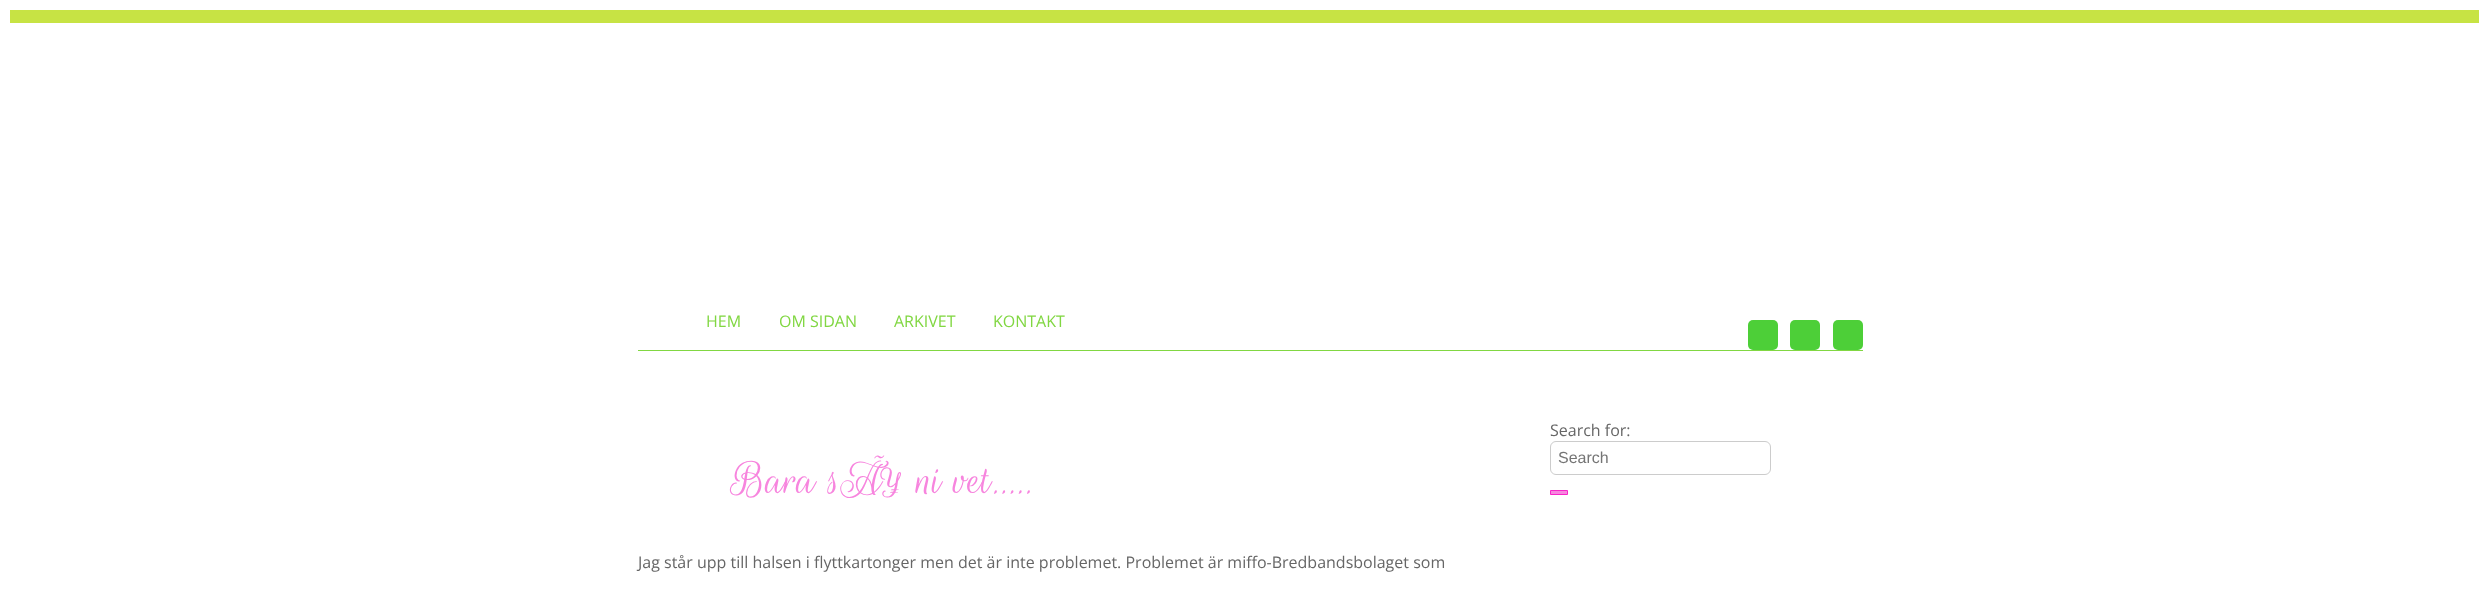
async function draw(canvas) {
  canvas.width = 2479;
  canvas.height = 590;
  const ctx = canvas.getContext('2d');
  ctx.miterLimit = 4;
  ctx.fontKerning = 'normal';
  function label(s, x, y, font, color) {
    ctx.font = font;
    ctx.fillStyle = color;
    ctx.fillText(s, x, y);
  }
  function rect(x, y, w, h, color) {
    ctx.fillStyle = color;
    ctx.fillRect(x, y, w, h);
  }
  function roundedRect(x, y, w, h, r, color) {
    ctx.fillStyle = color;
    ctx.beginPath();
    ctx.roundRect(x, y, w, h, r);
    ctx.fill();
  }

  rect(0, 0, 2479, 590, '#fff');
  rect(10, 10, 2469, 13, '#c7e344');
  rect(638, 350, 1225, 1, '#81d742');
  label('HEM', 706, 327, '16px Open Sans', '#81d742');
  label('OM SIDAN', 779, 327, '16px Open Sans', '#81d742');
  label('ARKIVET', 894, 327, '16px Open Sans', '#81d742');
  label('KONTAKT', 993, 327, '16px Open Sans', '#81d742');
  roundedRect(1748, 320, 30, 30, 5, '#4dcf38');
  roundedRect(1790, 320, 30, 30, 5, '#4dcf38');
  roundedRect(1833, 320, 30, 30, 5, '#4dcf38');
  label('Search for:', 1550, 436, '16px Open Sans', '#666');
  ctx.beginPath();
  ctx.roundRect(1550.5, 441.5, 220, 33, 5.5);
  ctx.strokeStyle = '#ccc';
  ctx.stroke();
  label('Search', 1558, 463, '16px Liberation Sans', '#757575');
  ctx.fillStyle = '#f785de';
  ctx.beginPath();
  ctx.rect(1550.5, 490.5, 17, 4);
  ctx.fill();
  ctx.strokeStyle = '#f725c9';
  ctx.stroke();
  label('Bara sÃ¥ ni vet…..', 731, 493, '49.5px Rouge Script', '#f785de');
  label('Jag står upp till halsen i flyttkartonger men det är inte problemet. Problemet är miffo-Bredbandsbolaget som', 638, 568, '16px Open Sans', '#666');
}

draw(document.querySelector('canvas'));
